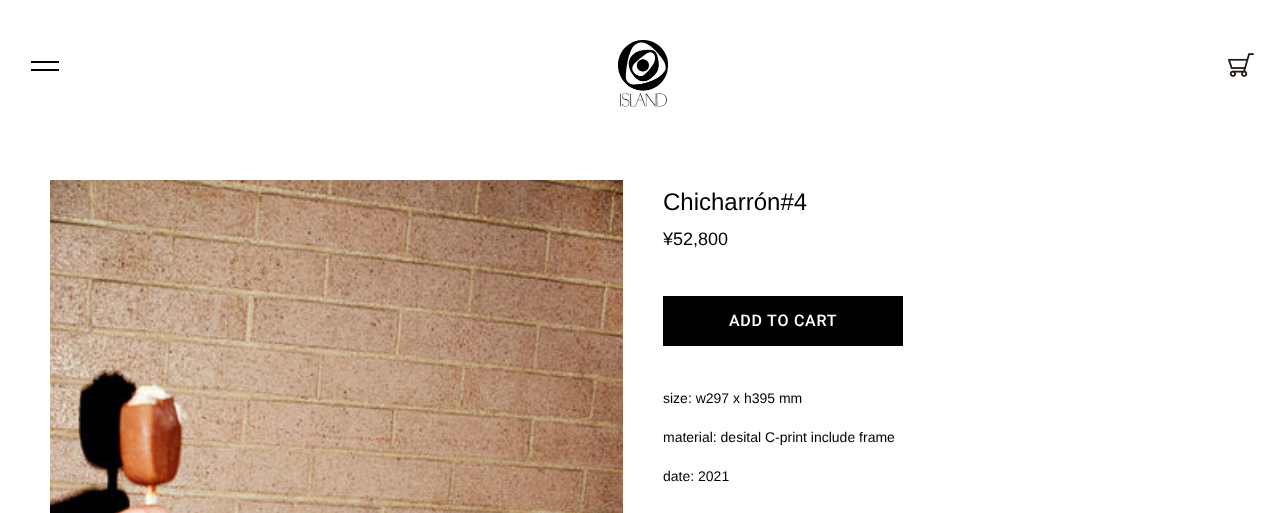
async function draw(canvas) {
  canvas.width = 1286;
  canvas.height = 513;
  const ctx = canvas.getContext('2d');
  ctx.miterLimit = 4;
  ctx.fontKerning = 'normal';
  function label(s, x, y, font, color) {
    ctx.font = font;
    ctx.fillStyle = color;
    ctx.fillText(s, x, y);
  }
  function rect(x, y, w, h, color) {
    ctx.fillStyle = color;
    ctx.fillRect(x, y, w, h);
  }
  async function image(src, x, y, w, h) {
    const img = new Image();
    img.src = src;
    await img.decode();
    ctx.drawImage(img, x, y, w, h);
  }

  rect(0, 0, 1286, 513, '#fff');
  rect(31, 61, 28, 2, '#000');
  rect(31, 69, 28, 2, '#000');
  await image('assets/img1.png', 618, 40, 50, 67);
  await image('assets/img2.png', 1228, 53, 26, 24);
  await image('assets/img3.png', 50, 180, 573, 333);
  label('Chicharrón#4', 663, 210, '24px Liberation Sans', '#000');
  label('¥52,800', 663, 245, '18px Liberation Sans', '#000');
  rect(663, 296, 240, 50, '#000');
  ctx.letterSpacing = '0.75px';
  label('ADD TO CART', 729, 326, '500 16px Roboto', '#fff');
  ctx.letterSpacing = '0px';
  label('size: w297 x h395 mm', 663, 403, '14px Liberation Sans', '#000');
  label('material: desital C-print include frame', 663, 442, '14px Liberation Sans', '#000');
  label('date: 2021', 663, 481, '14px Liberation Sans', '#000');
}

draw(document.querySelector('canvas'));
